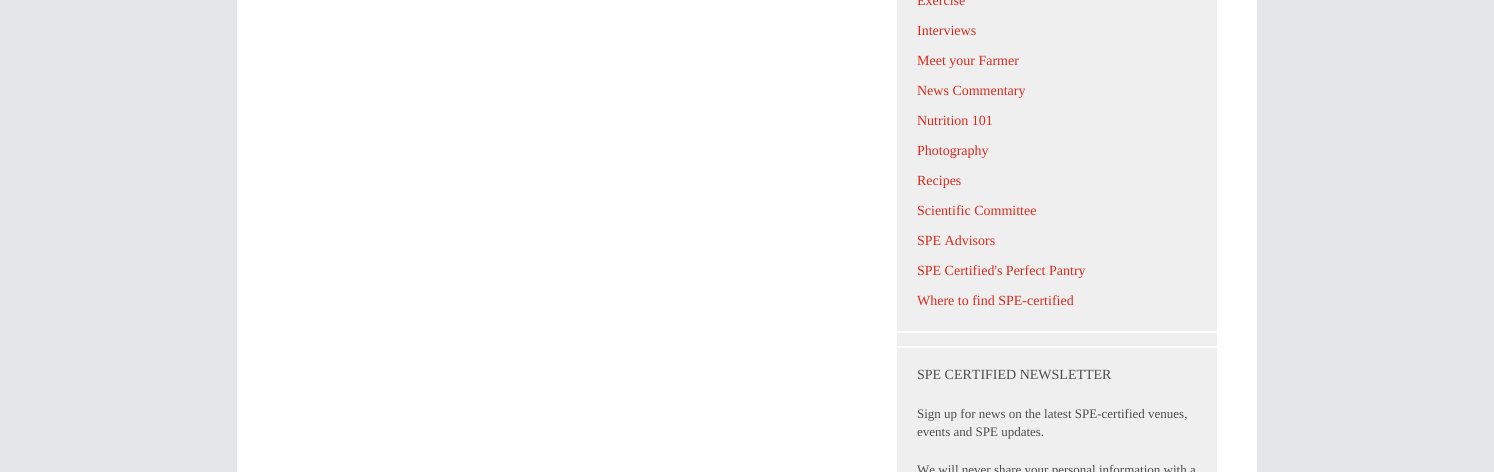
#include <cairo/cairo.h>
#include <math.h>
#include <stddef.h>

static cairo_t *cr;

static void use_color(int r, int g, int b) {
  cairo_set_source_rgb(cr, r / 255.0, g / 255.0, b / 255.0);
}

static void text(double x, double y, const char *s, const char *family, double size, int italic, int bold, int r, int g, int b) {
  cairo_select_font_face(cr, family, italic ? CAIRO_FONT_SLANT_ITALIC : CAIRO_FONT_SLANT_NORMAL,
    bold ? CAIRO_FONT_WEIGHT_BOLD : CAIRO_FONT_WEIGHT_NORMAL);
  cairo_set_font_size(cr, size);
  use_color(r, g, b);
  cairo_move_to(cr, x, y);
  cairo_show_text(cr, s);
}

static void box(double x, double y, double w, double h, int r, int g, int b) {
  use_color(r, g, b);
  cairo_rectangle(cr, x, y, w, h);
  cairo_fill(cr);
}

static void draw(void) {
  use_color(229, 230, 231);
  cairo_paint(cr);
  box(237, 0, 1020, 472, 255, 255, 255);
  box(897, 0, 320, 472, 239, 239, 239);
  box(897, 331, 320, 2, 255, 255, 255);
  box(897, 346, 320, 2, 255, 255, 255);
  text(917, 5, "Exercise", "Liberation Serif", 14, 0, 0, 218, 41, 28);
  text(917, 35, "Interviews", "Liberation Serif", 14, 0, 0, 218, 41, 28);
  text(917, 65, "Meet your Farmer", "Liberation Serif", 14, 0, 0, 218, 41, 28);
  text(917, 95, "News Commentary", "Liberation Serif", 14, 0, 0, 218, 41, 28);
  text(917, 125, "Nutrition 101", "Liberation Serif", 14, 0, 0, 218, 41, 28);
  text(917, 155, "Photography", "Liberation Serif", 14, 0, 0, 218, 41, 28);
  text(917, 185, "Recipes", "Liberation Serif", 14, 0, 0, 218, 41, 28);
  text(917, 215, "Scientific Committee", "Liberation Serif", 14, 0, 0, 218, 41, 28);
  text(917, 245, "SPE Advisors", "Liberation Serif", 14, 0, 0, 218, 41, 28);
  text(917, 275, "SPE Certified's Perfect Pantry", "Liberation Serif", 14, 0, 0, 218, 41, 28);
  text(917, 305, "Where to find SPE-certified", "Liberation Serif", 14, 0, 0, 218, 41, 28);
  text(917, 379, "SPE CERTIFIED NEWSLETTER", "Liberation Serif", 14, 0, 0, 77, 77, 77);
  text(917, 418, "Sign up for news on the latest SPE-certified venues,", "Liberation Serif", 13, 0, 0, 77, 77, 77);
  text(917, 436, "events and SPE updates.", "Liberation Serif", 13, 0, 0, 77, 77, 77);
  text(917, 474, "We will never share your personal information with a", "Liberation Serif", 13, 0, 0, 77, 77, 77);
}

int main(void) {
  cairo_surface_t *surface = cairo_image_surface_create(CAIRO_FORMAT_RGB24, 1494, 472);
  cr = cairo_create(surface);
  cairo_font_options_t *options = cairo_font_options_create();
  cairo_font_options_set_hint_metrics(options, CAIRO_HINT_METRICS_OFF);
  cairo_font_options_set_hint_style(options, CAIRO_HINT_STYLE_NONE);
  cairo_set_font_options(cr, options);
  cairo_set_miter_limit(cr, 4);
  draw();
  cairo_surface_write_to_png(surface, "out.png");
  cairo_font_options_destroy(options);
  cairo_destroy(cr);
  cairo_surface_destroy(surface);
  return 0;
}
